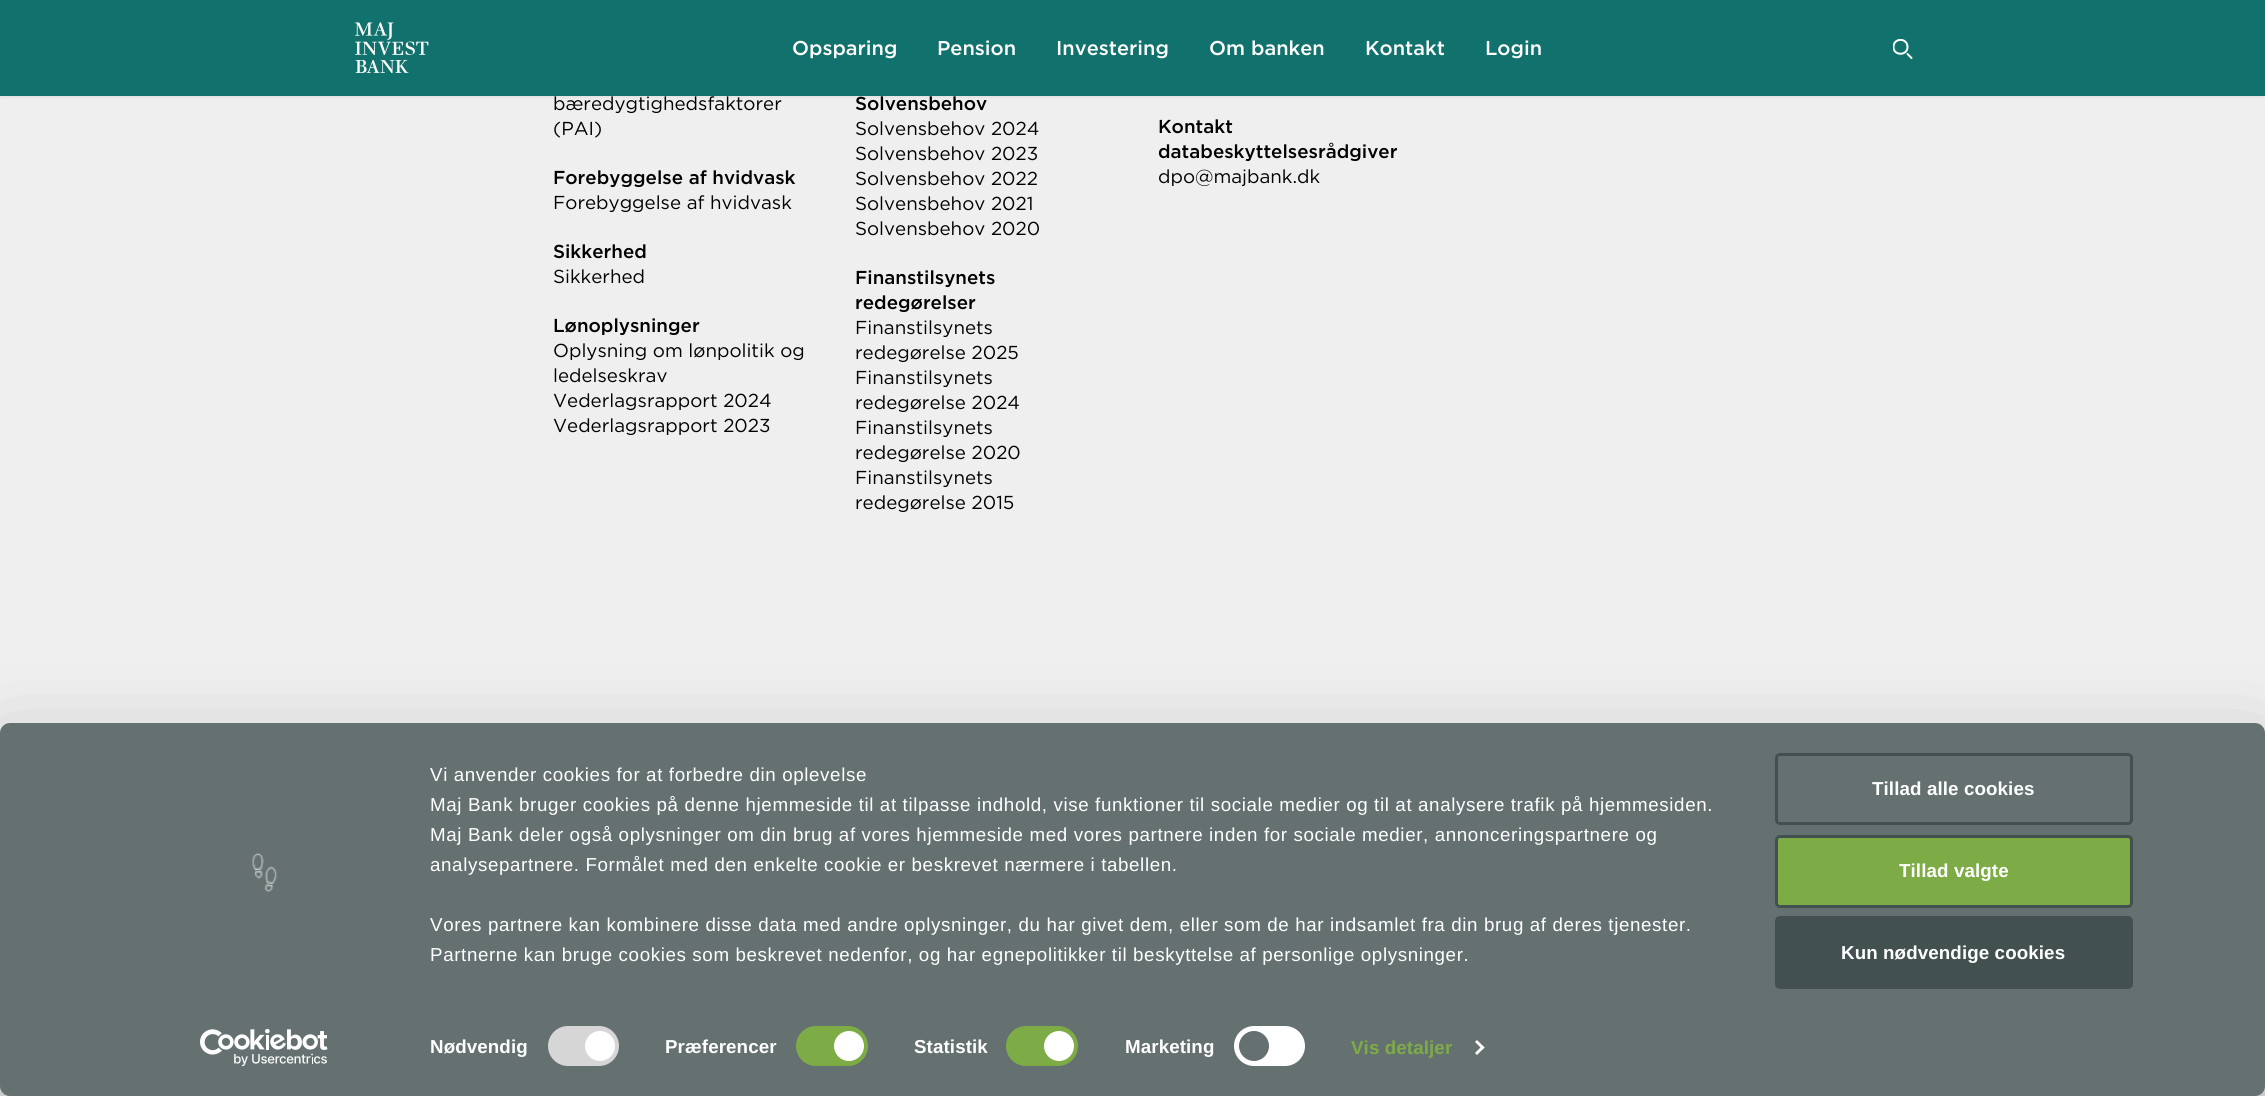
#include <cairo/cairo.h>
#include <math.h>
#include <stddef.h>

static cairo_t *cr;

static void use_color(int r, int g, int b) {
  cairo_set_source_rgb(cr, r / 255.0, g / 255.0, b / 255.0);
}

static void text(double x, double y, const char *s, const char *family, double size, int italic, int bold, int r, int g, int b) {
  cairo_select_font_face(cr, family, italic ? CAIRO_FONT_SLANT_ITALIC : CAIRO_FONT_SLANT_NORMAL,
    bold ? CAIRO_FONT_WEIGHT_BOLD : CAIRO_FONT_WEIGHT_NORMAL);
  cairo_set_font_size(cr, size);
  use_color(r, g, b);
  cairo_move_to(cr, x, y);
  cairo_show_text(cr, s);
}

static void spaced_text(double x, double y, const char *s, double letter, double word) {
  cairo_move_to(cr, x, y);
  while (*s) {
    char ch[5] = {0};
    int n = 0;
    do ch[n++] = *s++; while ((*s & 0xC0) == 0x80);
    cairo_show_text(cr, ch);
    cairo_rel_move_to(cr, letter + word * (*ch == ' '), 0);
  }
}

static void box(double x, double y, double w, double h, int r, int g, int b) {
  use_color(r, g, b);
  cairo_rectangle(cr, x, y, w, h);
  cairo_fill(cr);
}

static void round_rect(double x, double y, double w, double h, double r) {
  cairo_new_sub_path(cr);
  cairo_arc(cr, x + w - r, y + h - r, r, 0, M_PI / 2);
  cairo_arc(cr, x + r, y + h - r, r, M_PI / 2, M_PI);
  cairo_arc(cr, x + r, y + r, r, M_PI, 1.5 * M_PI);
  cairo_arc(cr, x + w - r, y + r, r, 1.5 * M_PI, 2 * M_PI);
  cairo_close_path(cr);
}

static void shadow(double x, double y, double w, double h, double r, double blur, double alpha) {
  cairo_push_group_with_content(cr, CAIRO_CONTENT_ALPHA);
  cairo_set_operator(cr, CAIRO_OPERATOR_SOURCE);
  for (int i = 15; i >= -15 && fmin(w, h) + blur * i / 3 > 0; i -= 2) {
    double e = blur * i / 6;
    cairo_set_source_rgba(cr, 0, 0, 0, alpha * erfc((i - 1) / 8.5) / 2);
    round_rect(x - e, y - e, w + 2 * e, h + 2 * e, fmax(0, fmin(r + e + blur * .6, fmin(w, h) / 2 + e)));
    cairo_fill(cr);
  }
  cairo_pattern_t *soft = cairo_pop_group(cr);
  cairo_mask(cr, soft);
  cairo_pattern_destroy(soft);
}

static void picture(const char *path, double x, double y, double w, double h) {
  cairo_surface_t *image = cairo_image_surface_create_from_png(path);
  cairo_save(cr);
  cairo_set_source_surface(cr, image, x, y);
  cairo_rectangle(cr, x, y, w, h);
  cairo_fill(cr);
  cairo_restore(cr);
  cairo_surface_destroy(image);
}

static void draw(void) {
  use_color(238, 239, 238);
  cairo_paint(cr);
  use_color(0, 0, 0);
  shadow(0, 1, 2265, 97, 0, 1, 0.05);
  box(0, 0, 2265, 96, 17, 113, 108);
  picture("img_01.png", 355, 22, 74, 51);
  cairo_save(cr);
  cairo_rectangle(cr, 1893, 39, 20, 20);
  cairo_clip(cr);
  cairo_new_path(cr);
  cairo_move_to(cr, 1911.5, 58);
  cairo_line_to(cr, 1907.5, 54);
  cairo_move_to(cr, 1907.5, 47);
  cairo_curve_to(cr, 1907.5, 56, 1893.5, 56, 1893.5, 47);
  cairo_curve_to(cr, 1893.5, 37.5, 1907.5, 37.5, 1907.5, 47);
  cairo_close_path(cr);
  use_color(255, 255, 255);
  cairo_set_line_cap(cr, CAIRO_LINE_CAP_ROUND);
  cairo_set_line_join(cr, CAIRO_LINE_JOIN_ROUND);
  cairo_stroke(cr);
  cairo_restore(cr);
  use_color(0, 0, 0);
  shadow(0, 760, 2265, 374, 10, 44, 0.3);
  use_color(101, 113, 112);
  round_rect(0, 723, 2265, 373, 10);
  cairo_fill(cr);
  picture("img_02.png", 252, 853, 25, 39);
  picture("img_03.png", 200, 1029, 128, 37);
  use_color(214, 214, 214);
  round_rect(548, 1026, 71, 40, 20);
  cairo_fill(cr);
  use_color(255, 255, 255);
  cairo_arc(cr, 600, 1046, 15, 0, 2 * M_PI);
  cairo_fill(cr);
  use_color(125, 172, 71);
  round_rect(796, 1026, 72, 40, 20);
  cairo_fill(cr);
  use_color(255, 255, 255);
  cairo_arc(cr, 849, 1046, 15, 0, 2 * M_PI);
  cairo_fill(cr);
  use_color(125, 172, 71);
  round_rect(1006, 1026, 72, 40, 20);
  cairo_fill(cr);
  use_color(255, 255, 255);
  cairo_arc(cr, 1059, 1046, 15, 0, 2 * M_PI);
  cairo_fill(cr);
  round_rect(1234, 1026, 71, 40, 20);
  cairo_fill(cr);
  use_color(101, 113, 112);
  cairo_arc(cr, 1254, 1046, 15, 0, 2 * M_PI);
  cairo_fill(cr);
  use_color(255, 255, 255);
  cairo_new_path(cr);
  cairo_move_to(cr, 1477, 1040);
  cairo_line_to(cr, 1484.5, 1047.5);
  cairo_line_to(cr, 1482.5, 1049.5);
  cairo_line_to(cr, 1475, 1042);
  cairo_close_path(cr);
  cairo_fill(cr);
  cairo_new_path(cr);
  cairo_move_to(cr, 1482.5, 1045.5);
  cairo_line_to(cr, 1484.5, 1047.5);
  cairo_line_to(cr, 1477, 1055);
  cairo_line_to(cr, 1475, 1053);
  cairo_close_path(cr);
  cairo_fill(cr);
  round_rect(1776.5, 754.5, 355, 69, 3.5);
  use_color(67, 80, 80);
  cairo_set_line_width(cr, 3);
  cairo_stroke(cr);
  use_color(125, 172, 71);
  round_rect(1776.5, 836.5, 355, 70, 3.5);
  cairo_fill_preserve(cr);
  use_color(67, 80, 80);
  cairo_stroke(cr);
  round_rect(1776.5, 917.5, 355, 70, 3.5);
  cairo_fill_preserve(cr);
  cairo_stroke(cr);
  text(792, 55, "Opsparing", "Gotham Medium", 20, 0, 0, 255, 255, 255);
  text(937, 55, "Pension", "Gotham Medium", 20, 0, 0, 255, 255, 255);
  text(1056, 55, "Investering", "Gotham Medium", 20, 0, 0, 255, 255, 255);
  text(1209, 55, "Om banken", "Gotham Medium", 20, 0, 0, 255, 255, 255);
  text(1365, 55, "Kontakt", "Gotham Medium", 20, 0, 0, 255, 255, 255);
  text(1485, 55, "Login", "Gotham Medium", 20, 0, 0, 255, 255, 255);
  text(553, 110, "bæredygtighedsfaktorer", "Gotham", 18.75, 0, 0, 0, 0, 0);
  text(553, 135, "(PAI)", "Gotham", 18.75, 0, 0, 0, 0, 0);
  text(553, 184, "Forebyggelse af hvidvask", "Gotham Medium", 18.75, 0, 0, 0, 0, 0);
  text(553, 209, "Forebyggelse af hvidvask", "Gotham", 18.75, 0, 0, 0, 0, 0);
  text(553, 258, "Sikkerhed", "Gotham Medium", 18.75, 0, 0, 0, 0, 0);
  text(553, 283, "Sikkerhed", "Gotham", 18.75, 0, 0, 0, 0, 0);
  text(553, 332, "Lønoplysninger", "Gotham Medium", 18.75, 0, 0, 0, 0, 0);
  text(553, 357, "Oplysning om lønpolitik og", "Gotham", 18.75, 0, 0, 0, 0, 0);
  text(553, 382, "ledelseskrav", "Gotham", 18.75, 0, 0, 0, 0, 0);
  text(553, 407, "Vederlagsrapport 2024", "Gotham", 18.75, 0, 0, 0, 0, 0);
  text(553, 432, "Vederlagsrapport 2023", "Gotham", 18.75, 0, 0, 0, 0, 0);
  text(855, 110, "Solvensbehov", "Gotham Medium", 18.75, 0, 0, 0, 0, 0);
  text(855, 135, "Solvensbehov 2024", "Gotham", 18.75, 0, 0, 0, 0, 0);
  text(855, 160, "Solvensbehov 2023", "Gotham", 18.75, 0, 0, 0, 0, 0);
  text(855, 185, "Solvensbehov 2022", "Gotham", 18.75, 0, 0, 0, 0, 0);
  text(855, 210, "Solvensbehov 2021", "Gotham", 18.75, 0, 0, 0, 0, 0);
  text(855, 235, "Solvensbehov 2020", "Gotham", 18.75, 0, 0, 0, 0, 0);
  text(855, 284, "Finanstilsynets", "Gotham Medium", 18.75, 0, 0, 0, 0, 0);
  text(855, 309, "redegørelser", "Gotham Medium", 18.75, 0, 0, 0, 0, 0);
  text(855, 334, "Finanstilsynets", "Gotham", 18.75, 0, 0, 0, 0, 0);
  text(855, 359, "redegørelse 2025", "Gotham", 18.75, 0, 0, 0, 0, 0);
  text(855, 384, "Finanstilsynets", "Gotham", 18.75, 0, 0, 0, 0, 0);
  text(855, 409, "redegørelse 2024", "Gotham", 18.75, 0, 0, 0, 0, 0);
  text(855, 434, "Finanstilsynets", "Gotham", 18.75, 0, 0, 0, 0, 0);
  text(855, 459, "redegørelse 2020", "Gotham", 18.75, 0, 0, 0, 0, 0);
  text(855, 484, "Finanstilsynets", "Gotham", 18.75, 0, 0, 0, 0, 0);
  text(855, 509, "redegørelse 2015", "Gotham", 18.75, 0, 0, 0, 0, 0);
  text(1158, 133, "Kontakt", "Gotham Medium", 18.75, 0, 0, 0, 0, 0);
  text(1158, 158, "databeskyttelsesrådgiver", "Gotham Medium", 18.75, 0, 0, 0, 0, 0);
  text(1158, 183, "dpo@majbank.dk", "Gotham", 18.75, 0, 0, 0, 0, 0);
  cairo_select_font_face(cr, "Liberation Sans", CAIRO_FONT_SLANT_NORMAL, CAIRO_FONT_WEIGHT_NORMAL);
  use_color(255, 255, 255);
  spaced_text(430, 781, "Vi anvender cookies for at forbedre din oplevelse", 0.62, 0);
  spaced_text(430, 811, "Maj Bank bruger cookies på denne hjemmeside til at tilpasse indhold, vise funktioner til sociale medier og til at analysere trafik på hjemmesiden.", 0.62, 0);
  spaced_text(430, 841, "Maj Bank deler også oplysninger om din brug af vores hjemmeside med vores partnere inden for sociale medier, annonceringspartnere og", 0.62, 0);
  spaced_text(430, 871, "analysepartnere. Formålet med den enkelte cookie er beskrevet nærmere i tabellen.", 0.62, 0);
  spaced_text(430, 931, "Vores partnere kan kombinere disse data med andre oplysninger, du har givet dem, eller som de har indsamlet fra din brug af deres tjenester.", 0.62, 0);
  spaced_text(430, 961, "Partnerne kan bruge cookies som beskrevet nedenfor, og har egnepolitikker til beskyttelse af personlige oplysninger.", 0.62, 0);
  cairo_select_font_face(cr, "Liberation Sans", CAIRO_FONT_SLANT_NORMAL, CAIRO_FONT_WEIGHT_BOLD);
  spaced_text(430, 1053, "Nødvendig", 0.1, 0);
  spaced_text(665, 1053, "Præferencer", 0.1, 0);
  spaced_text(914, 1053, "Statistik", 0.1, 0);
  spaced_text(1125, 1053, "Marketing", 0.1, 0);
  use_color(125, 172, 71);
  spaced_text(1351, 1054, "Vis detaljer", 0.1, 0);
  use_color(255, 255, 255);
  spaced_text(1872, 795, "Tillad alle cookies", 0.1, 0);
  spaced_text(1899, 877, "Tillad valgte", 0.1, 0);
  spaced_text(1841, 959, "Kun nødvendige cookies", 0.1, 0);
}

int main(void) {
  cairo_surface_t *surface = cairo_image_surface_create(CAIRO_FORMAT_RGB24, 2265, 1096);
  cr = cairo_create(surface);
  cairo_font_options_t *options = cairo_font_options_create();
  cairo_font_options_set_hint_metrics(options, CAIRO_HINT_METRICS_OFF);
  cairo_font_options_set_hint_style(options, CAIRO_HINT_STYLE_NONE);
  cairo_set_font_options(cr, options);
  cairo_set_miter_limit(cr, 4);
  draw();
  cairo_surface_write_to_png(surface, "out.png");
  cairo_font_options_destroy(options);
  cairo_destroy(cr);
  cairo_surface_destroy(surface);
  return 0;
}
